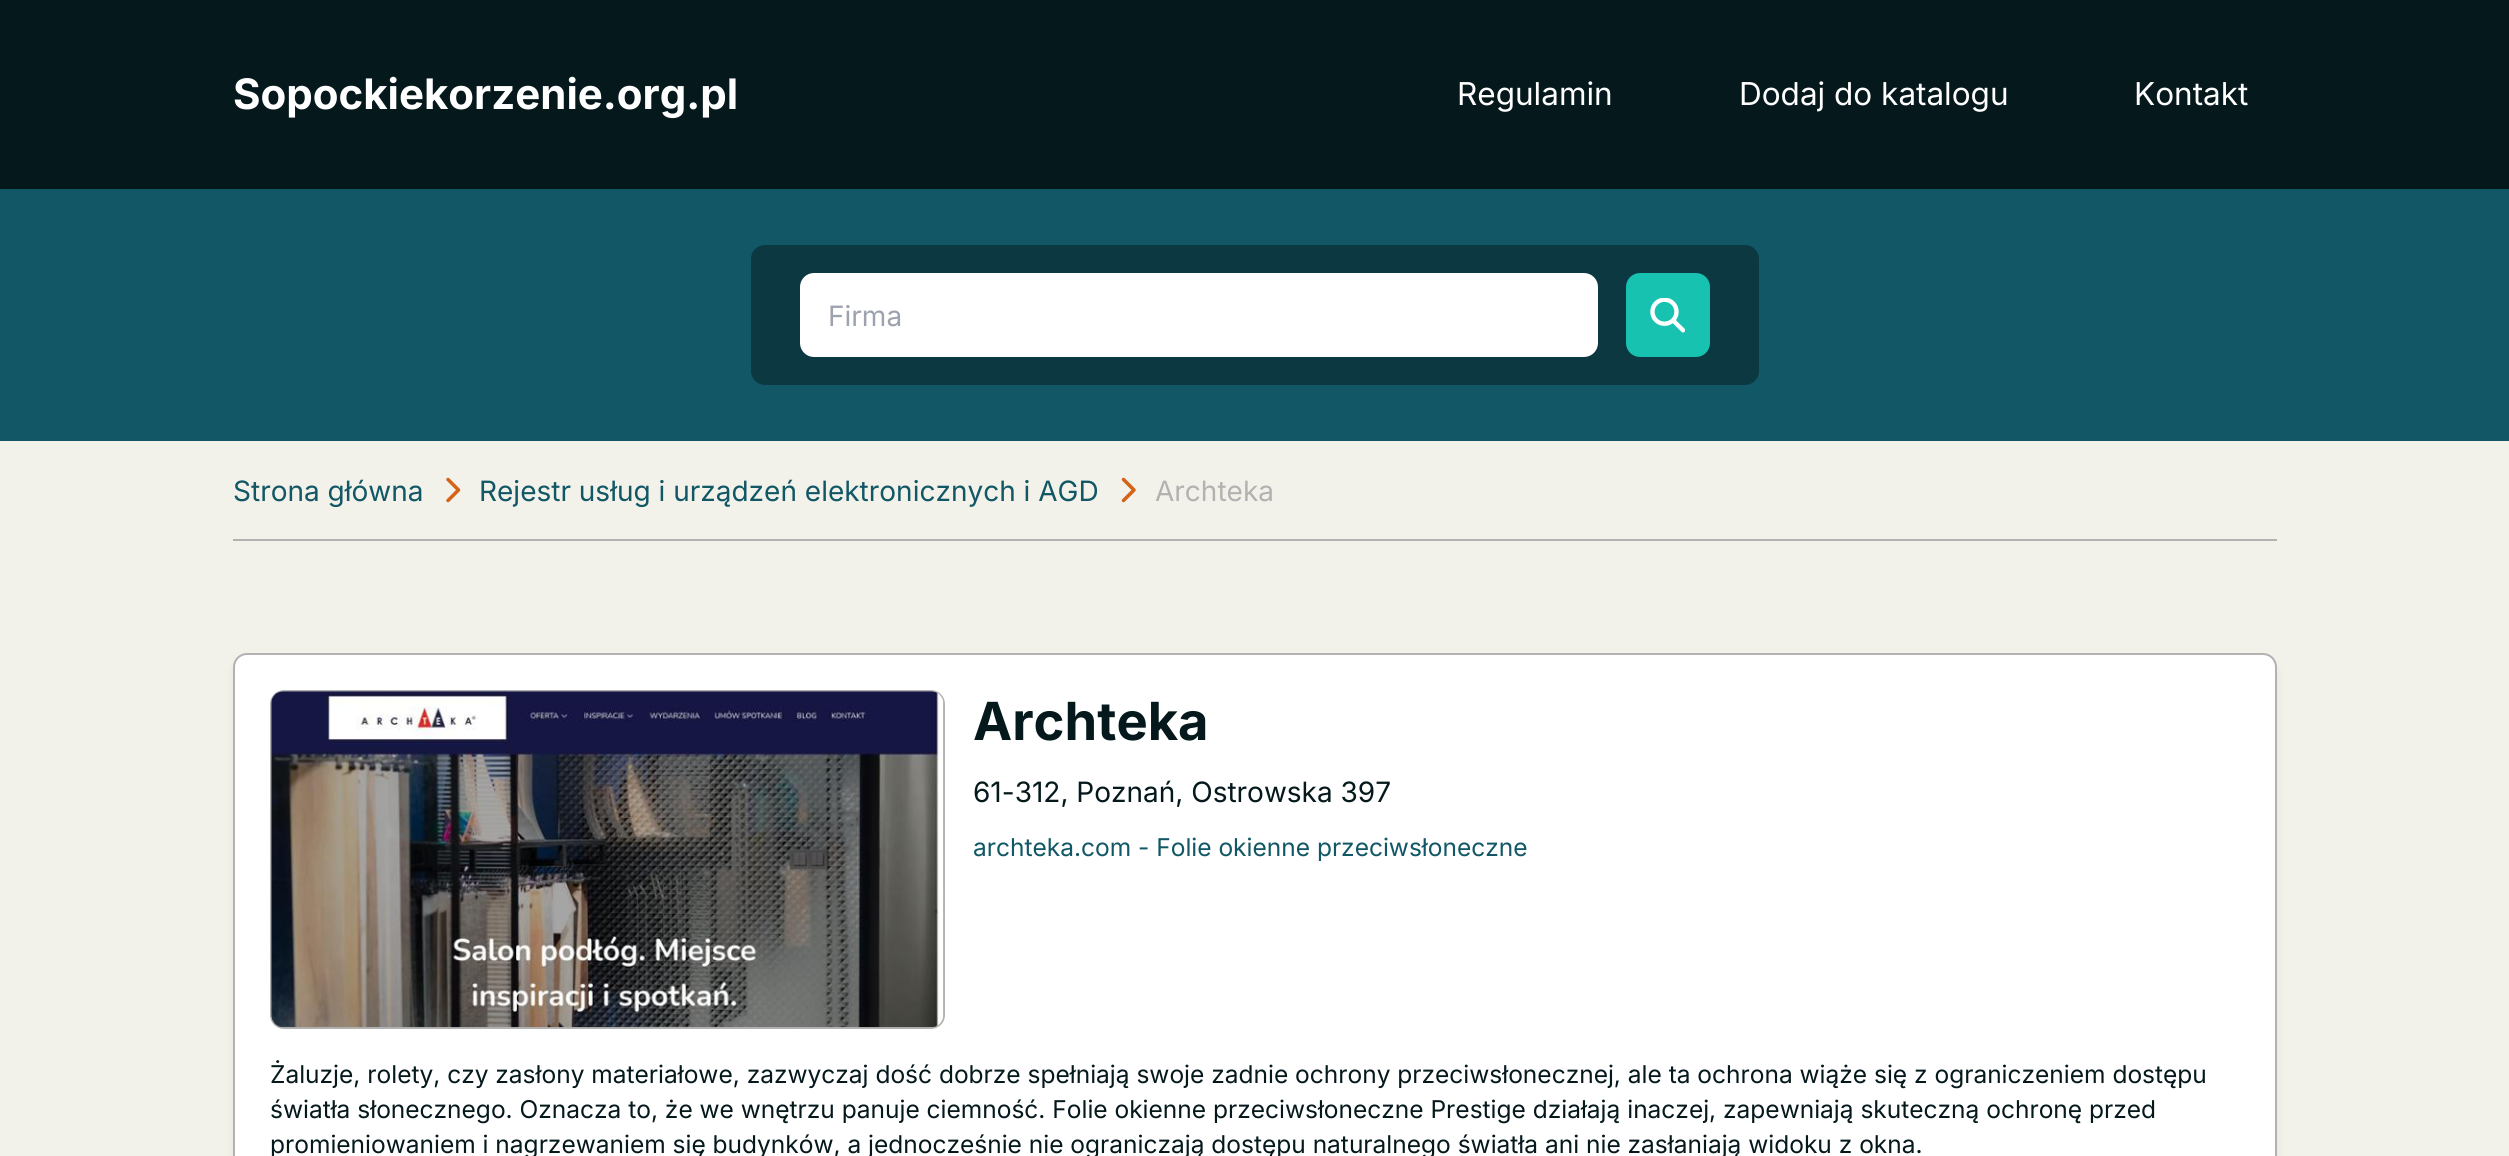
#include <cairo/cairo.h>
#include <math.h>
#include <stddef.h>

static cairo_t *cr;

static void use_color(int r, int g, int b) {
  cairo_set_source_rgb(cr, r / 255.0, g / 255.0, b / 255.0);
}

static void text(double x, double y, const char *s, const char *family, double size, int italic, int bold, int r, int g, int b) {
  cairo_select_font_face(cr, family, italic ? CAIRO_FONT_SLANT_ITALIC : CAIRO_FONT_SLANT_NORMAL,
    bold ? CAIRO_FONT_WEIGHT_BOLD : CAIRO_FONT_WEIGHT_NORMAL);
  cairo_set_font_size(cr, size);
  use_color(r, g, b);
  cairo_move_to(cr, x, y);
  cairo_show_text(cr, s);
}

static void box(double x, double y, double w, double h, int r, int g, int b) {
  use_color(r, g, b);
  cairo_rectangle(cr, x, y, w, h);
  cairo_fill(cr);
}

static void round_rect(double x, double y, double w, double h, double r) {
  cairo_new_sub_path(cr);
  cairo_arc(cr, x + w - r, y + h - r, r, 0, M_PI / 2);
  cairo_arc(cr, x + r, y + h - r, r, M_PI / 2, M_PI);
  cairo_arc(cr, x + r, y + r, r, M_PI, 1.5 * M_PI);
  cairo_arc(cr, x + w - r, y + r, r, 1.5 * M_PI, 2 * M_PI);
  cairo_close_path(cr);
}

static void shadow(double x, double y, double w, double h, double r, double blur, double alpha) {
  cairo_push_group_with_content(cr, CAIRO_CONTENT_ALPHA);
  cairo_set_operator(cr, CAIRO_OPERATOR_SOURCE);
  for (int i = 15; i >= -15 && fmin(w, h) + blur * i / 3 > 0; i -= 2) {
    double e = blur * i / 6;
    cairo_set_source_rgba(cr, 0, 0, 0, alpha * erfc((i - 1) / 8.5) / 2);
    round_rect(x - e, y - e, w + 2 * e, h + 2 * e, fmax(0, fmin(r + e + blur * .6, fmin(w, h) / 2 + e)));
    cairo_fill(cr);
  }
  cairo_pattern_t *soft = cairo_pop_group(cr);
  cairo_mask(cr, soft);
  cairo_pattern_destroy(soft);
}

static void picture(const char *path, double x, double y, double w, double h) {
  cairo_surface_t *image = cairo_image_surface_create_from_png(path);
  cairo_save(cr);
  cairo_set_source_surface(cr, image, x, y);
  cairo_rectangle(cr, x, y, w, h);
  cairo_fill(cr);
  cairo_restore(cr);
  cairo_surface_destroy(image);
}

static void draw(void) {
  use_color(243, 242, 234);
  cairo_paint(cr);
  box(0, 0, 2509, 189, 5, 25, 29);
  box(0, 189, 2509, 252, 17, 87, 101);
  use_color(11, 56, 65);
  round_rect(751, 245, 1008, 140, 14);
  cairo_fill(cr);
  use_color(255, 255, 255);
  round_rect(800, 273, 798, 84, 14);
  cairo_fill(cr);
  use_color(23, 194, 177);
  round_rect(1626, 273, 84, 84, 14);
  cairo_fill(cr);
  picture("img_01.png", 1650, 298, 35, 35);
  box(233, 539, 2044, 2, 178, 178, 178);
  picture("img_02.png", 446, 477, 15, 26);
  picture("img_03.png", 1121, 477, 15, 26);
  use_color(0, 0, 0);
  shadow(235, 662, 2040, 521, 12, 5, 0.1);
  use_color(255, 255, 255);
  round_rect(234, 654, 2042, 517, 13);
  cairo_fill_preserve(cr);
  use_color(178, 178, 178);
  cairo_stroke(cr);
  round_rect(271, 691, 673, 337, 13);
  cairo_stroke(cr);
  picture("img_04.png", 271, 691, 673, 337);
  text(233, 109, "Sopockiekorzenie.org.pl", "Inter", 42, 0, 1, 255, 255, 255);
  text(1457, 105, "Regulamin", "Inter", 31.5, 0, 0, 255, 255, 255);
  text(1739, 105, "Dodaj do katalogu", "Inter", 31.5, 0, 0, 255, 255, 255);
  text(2134, 105, "Kontakt", "Inter", 31.5, 0, 0, 255, 255, 255);
  text(828, 326, "Firma", "Inter", 28, 0, 0, 156, 163, 175);
  text(233, 501, "Strona główna", "Inter", 28, 0, 0, 17, 87, 101);
  text(479, 501, "Rejestr usług i urządzeń elektronicznych i AGD", "Inter", 28, 0, 0, 17, 87, 101);
  text(1155, 501, "Archteka", "Inter", 28, 0, 0, 178, 178, 178);
  text(973, 740, "Archteka", "Inter", 52.5, 0, 1, 5, 25, 29);
  text(973, 802, "61-312, Poznań, Ostrowska 397", "Inter", 28, 0, 0, 5, 25, 29);
  text(973, 856, "archteka.com - Folie okienne przeciwsłoneczne", "Inter", 24.5, 0, 0, 17, 87, 101);
  text(270, 1083, "Żaluzje, rolety, czy zasłony materiałowe, zazwyczaj dość dobrze spełniają swoje zadnie ochrony przeciwsłonecznej, ale ta ochrona wiąże się z ograniczeniem dostępu", "Inter", 24.5, 0, 0, 5, 25, 29);
  text(270, 1118, "światła słonecznego. Oznacza to, że we wnętrzu panuje ciemność. Folie okienne przeciwsłoneczne Prestige działają inaczej, zapewniają skuteczną ochronę przed", "Inter", 24.5, 0, 0, 5, 25, 29);
  text(270, 1153, "promieniowaniem i nagrzewaniem się budynków, a jednocześnie nie ograniczają dostępu naturalnego światła ani nie zasłaniają widoku z okna.", "Inter", 24.5, 0, 0, 5, 25, 29);
}

int main(void) {
  cairo_surface_t *surface = cairo_image_surface_create(CAIRO_FORMAT_RGB24, 2509, 1156);
  cr = cairo_create(surface);
  cairo_font_options_t *options = cairo_font_options_create();
  cairo_font_options_set_hint_metrics(options, CAIRO_HINT_METRICS_OFF);
  cairo_font_options_set_hint_style(options, CAIRO_HINT_STYLE_NONE);
  cairo_set_font_options(cr, options);
  cairo_set_miter_limit(cr, 4);
  draw();
  cairo_surface_write_to_png(surface, "out.png");
  cairo_font_options_destroy(options);
  cairo_destroy(cr);
  cairo_surface_destroy(surface);
  return 0;
}
